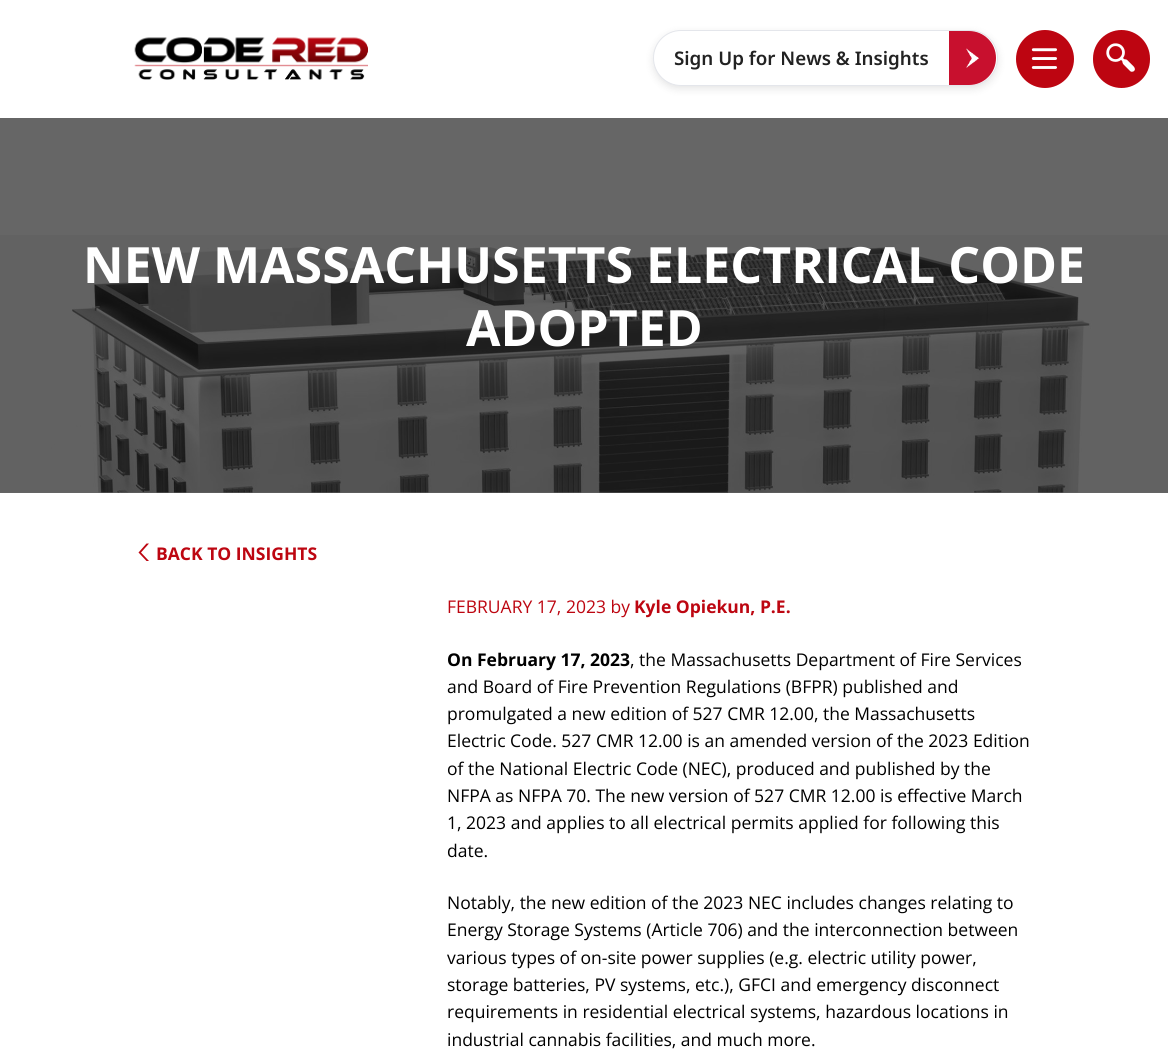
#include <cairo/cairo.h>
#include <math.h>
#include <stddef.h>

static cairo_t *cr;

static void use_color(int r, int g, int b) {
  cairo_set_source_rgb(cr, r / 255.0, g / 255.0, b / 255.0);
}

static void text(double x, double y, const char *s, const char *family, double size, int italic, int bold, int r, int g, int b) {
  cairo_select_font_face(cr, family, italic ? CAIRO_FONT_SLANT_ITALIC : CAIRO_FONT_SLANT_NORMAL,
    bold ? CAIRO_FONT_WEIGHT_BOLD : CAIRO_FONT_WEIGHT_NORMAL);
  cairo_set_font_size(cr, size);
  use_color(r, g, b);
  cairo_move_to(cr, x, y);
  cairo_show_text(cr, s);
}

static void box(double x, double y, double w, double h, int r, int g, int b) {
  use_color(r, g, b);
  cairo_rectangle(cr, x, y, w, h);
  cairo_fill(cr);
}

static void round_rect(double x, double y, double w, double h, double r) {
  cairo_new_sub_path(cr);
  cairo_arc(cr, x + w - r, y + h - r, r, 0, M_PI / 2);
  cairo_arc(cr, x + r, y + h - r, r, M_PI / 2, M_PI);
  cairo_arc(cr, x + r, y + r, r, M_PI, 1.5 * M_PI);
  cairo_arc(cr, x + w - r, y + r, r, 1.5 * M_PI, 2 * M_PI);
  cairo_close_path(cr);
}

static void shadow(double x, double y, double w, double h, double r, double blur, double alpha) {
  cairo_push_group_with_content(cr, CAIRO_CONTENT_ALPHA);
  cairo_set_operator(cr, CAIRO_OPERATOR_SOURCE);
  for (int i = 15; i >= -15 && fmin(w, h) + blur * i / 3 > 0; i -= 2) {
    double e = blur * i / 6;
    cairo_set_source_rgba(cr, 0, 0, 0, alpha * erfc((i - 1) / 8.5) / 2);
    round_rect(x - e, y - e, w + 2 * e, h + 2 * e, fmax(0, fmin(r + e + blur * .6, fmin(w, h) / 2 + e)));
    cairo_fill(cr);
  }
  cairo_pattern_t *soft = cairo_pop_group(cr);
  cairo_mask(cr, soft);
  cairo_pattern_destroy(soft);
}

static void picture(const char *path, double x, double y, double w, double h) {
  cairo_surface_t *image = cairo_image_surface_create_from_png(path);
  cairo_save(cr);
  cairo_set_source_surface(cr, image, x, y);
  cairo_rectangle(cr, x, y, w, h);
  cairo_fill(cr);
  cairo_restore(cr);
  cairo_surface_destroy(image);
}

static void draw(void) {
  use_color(255, 255, 255);
  cairo_paint(cr);
  picture("img_01.png", 134, 37, 234, 43);
  use_color(0, 0, 0);
  shadow(653, 33, 345, 56, 28, 4, 0.1);
  use_color(255, 255, 255);
  round_rect(653.5, 30.5, 344, 55, 27.5);
  cairo_fill_preserve(cr);
  use_color(228, 230, 235);
  cairo_set_line_width(cr, 1);
  cairo_stroke(cr);
  use_color(200, 16, 46);
  cairo_new_path(cr);
  cairo_move_to(cr, 949, 31);
  cairo_line_to(cr, 969, 31);
  cairo_curve_to(cr, 984, 31, 996, 43, 996, 58);
  cairo_curve_to(cr, 996, 73, 984, 85, 969, 85);
  cairo_line_to(cr, 949, 85);
  cairo_close_path(cr);
  cairo_fill(cr);
  picture("img_02.png", 966, 48, 13, 20);
  use_color(189, 5, 17);
  cairo_arc(cr, 1045, 59, 27.5, 0, 2 * M_PI);
  cairo_fill_preserve(cr);
  cairo_set_line_width(cr, 3);
  cairo_stroke(cr);
  picture("img_03.png", 1031, 48, 26, 21);
  round_rect(1094.5, 31.5, 54, 55, 27);
  cairo_fill_preserve(cr);
  cairo_stroke(cr);
  picture("img_04.png", 1106, 43, 29, 29);
  box(0, 118, 1168, 375, 102, 102, 102);
  picture("img_05.png", 0, 235, 1168, 258);
  use_color(189, 6, 17);
  cairo_new_path(cr);
  cairo_move_to(cr, 146.5, 543.5);
  cairo_line_to(cr, 138.5, 552.5);
  cairo_line_to(cr, 146.5, 561);
  cairo_line_to(cr, 149, 561);
  cairo_line_to(cr, 141, 552.5);
  cairo_line_to(cr, 149, 543.5);
  cairo_close_path(cr);
  cairo_fill(cr);
  text(674, 65, "Sign Up for News & Insights", "Noto Sans SemiBold", 18.75, 0, 0, 34, 34, 34);
  text(83, 283, "NEW MASSACHUSETTS ELECTRICAL CODE", "Open Sans", 50, 0, 1, 255, 255, 255);
  text(466, 346, "ADOPTED", "Open Sans", 50, 0, 1, 255, 255, 255);
  text(156, 560, "BACK TO INSIGHTS", "Open Sans", 17.5, 0, 1, 189, 6, 17);
  text(447, 613, "FEBRUARY 17, 2023 by", "Open Sans", 17.5, 0, 0, 189, 6, 17);
  text(634, 613, "Kyle Opiekun, P.E.", "Open Sans", 17.5, 0, 1, 189, 6, 17);
  text(447, 666, "On February 17, 2023", "Open Sans", 17.5, 0, 1, 0, 0, 0);
  text(630, 666, ", the Massachusetts Department of Fire Services", "Open Sans", 17.5, 0, 0, 0, 0, 0);
  text(447, 693, "and Board of Fire Prevention Regulations (BFPR) published and", "Open Sans", 17.5, 0, 0, 0, 0, 0);
  text(447, 720, "promulgated a new edition of 527 CMR 12.00, the Massachusetts", "Open Sans", 17.5, 0, 0, 0, 0, 0);
  text(447, 747, "Electric Code. 527 CMR 12.00 is an amended version of the 2023 Edition", "Open Sans", 17.5, 0, 0, 0, 0, 0);
  text(447, 775, "of the National Electric Code (NEC), produced and published by the", "Open Sans", 17.5, 0, 0, 0, 0, 0);
  text(447, 802, "NFPA as NFPA 70. The new version of 527 CMR 12.00 is effective March", "Open Sans", 17.5, 0, 0, 0, 0, 0);
  text(447, 829, "1, 2023 and applies to all electrical permits applied for following this", "Open Sans", 17.5, 0, 0, 0, 0, 0);
  text(447, 857, "date.", "Open Sans", 17.5, 0, 0, 0, 0, 0);
  text(447, 909, "Notably, the new edition of the 2023 NEC includes changes relating to", "Open Sans", 17.5, 0, 0, 0, 0, 0);
  text(447, 936, "Energy Storage Systems (Article 706) and the interconnection between", "Open Sans", 17.5, 0, 0, 0, 0, 0);
  text(447, 964, "various types of on-site power supplies (e.g. electric utility power,", "Open Sans", 17.5, 0, 0, 0, 0, 0);
  text(447, 991, "storage batteries, PV systems, etc.), GFCI and emergency disconnect", "Open Sans", 17.5, 0, 0, 0, 0, 0);
  text(447, 1018, "requirements in residential electrical systems, hazardous locations in", "Open Sans", 17.5, 0, 0, 0, 0, 0);
  text(447, 1046, "industrial cannabis facilities, and much more.", "Open Sans", 17.5, 0, 0, 0, 0, 0);
}

int main(void) {
  cairo_surface_t *surface = cairo_image_surface_create(CAIRO_FORMAT_RGB24, 1168, 1054);
  cr = cairo_create(surface);
  cairo_font_options_t *options = cairo_font_options_create();
  cairo_font_options_set_hint_metrics(options, CAIRO_HINT_METRICS_OFF);
  cairo_font_options_set_hint_style(options, CAIRO_HINT_STYLE_NONE);
  cairo_set_font_options(cr, options);
  cairo_set_miter_limit(cr, 4);
  draw();
  cairo_surface_write_to_png(surface, "out.png");
  cairo_font_options_destroy(options);
  cairo_destroy(cr);
  cairo_surface_destroy(surface);
  return 0;
}
